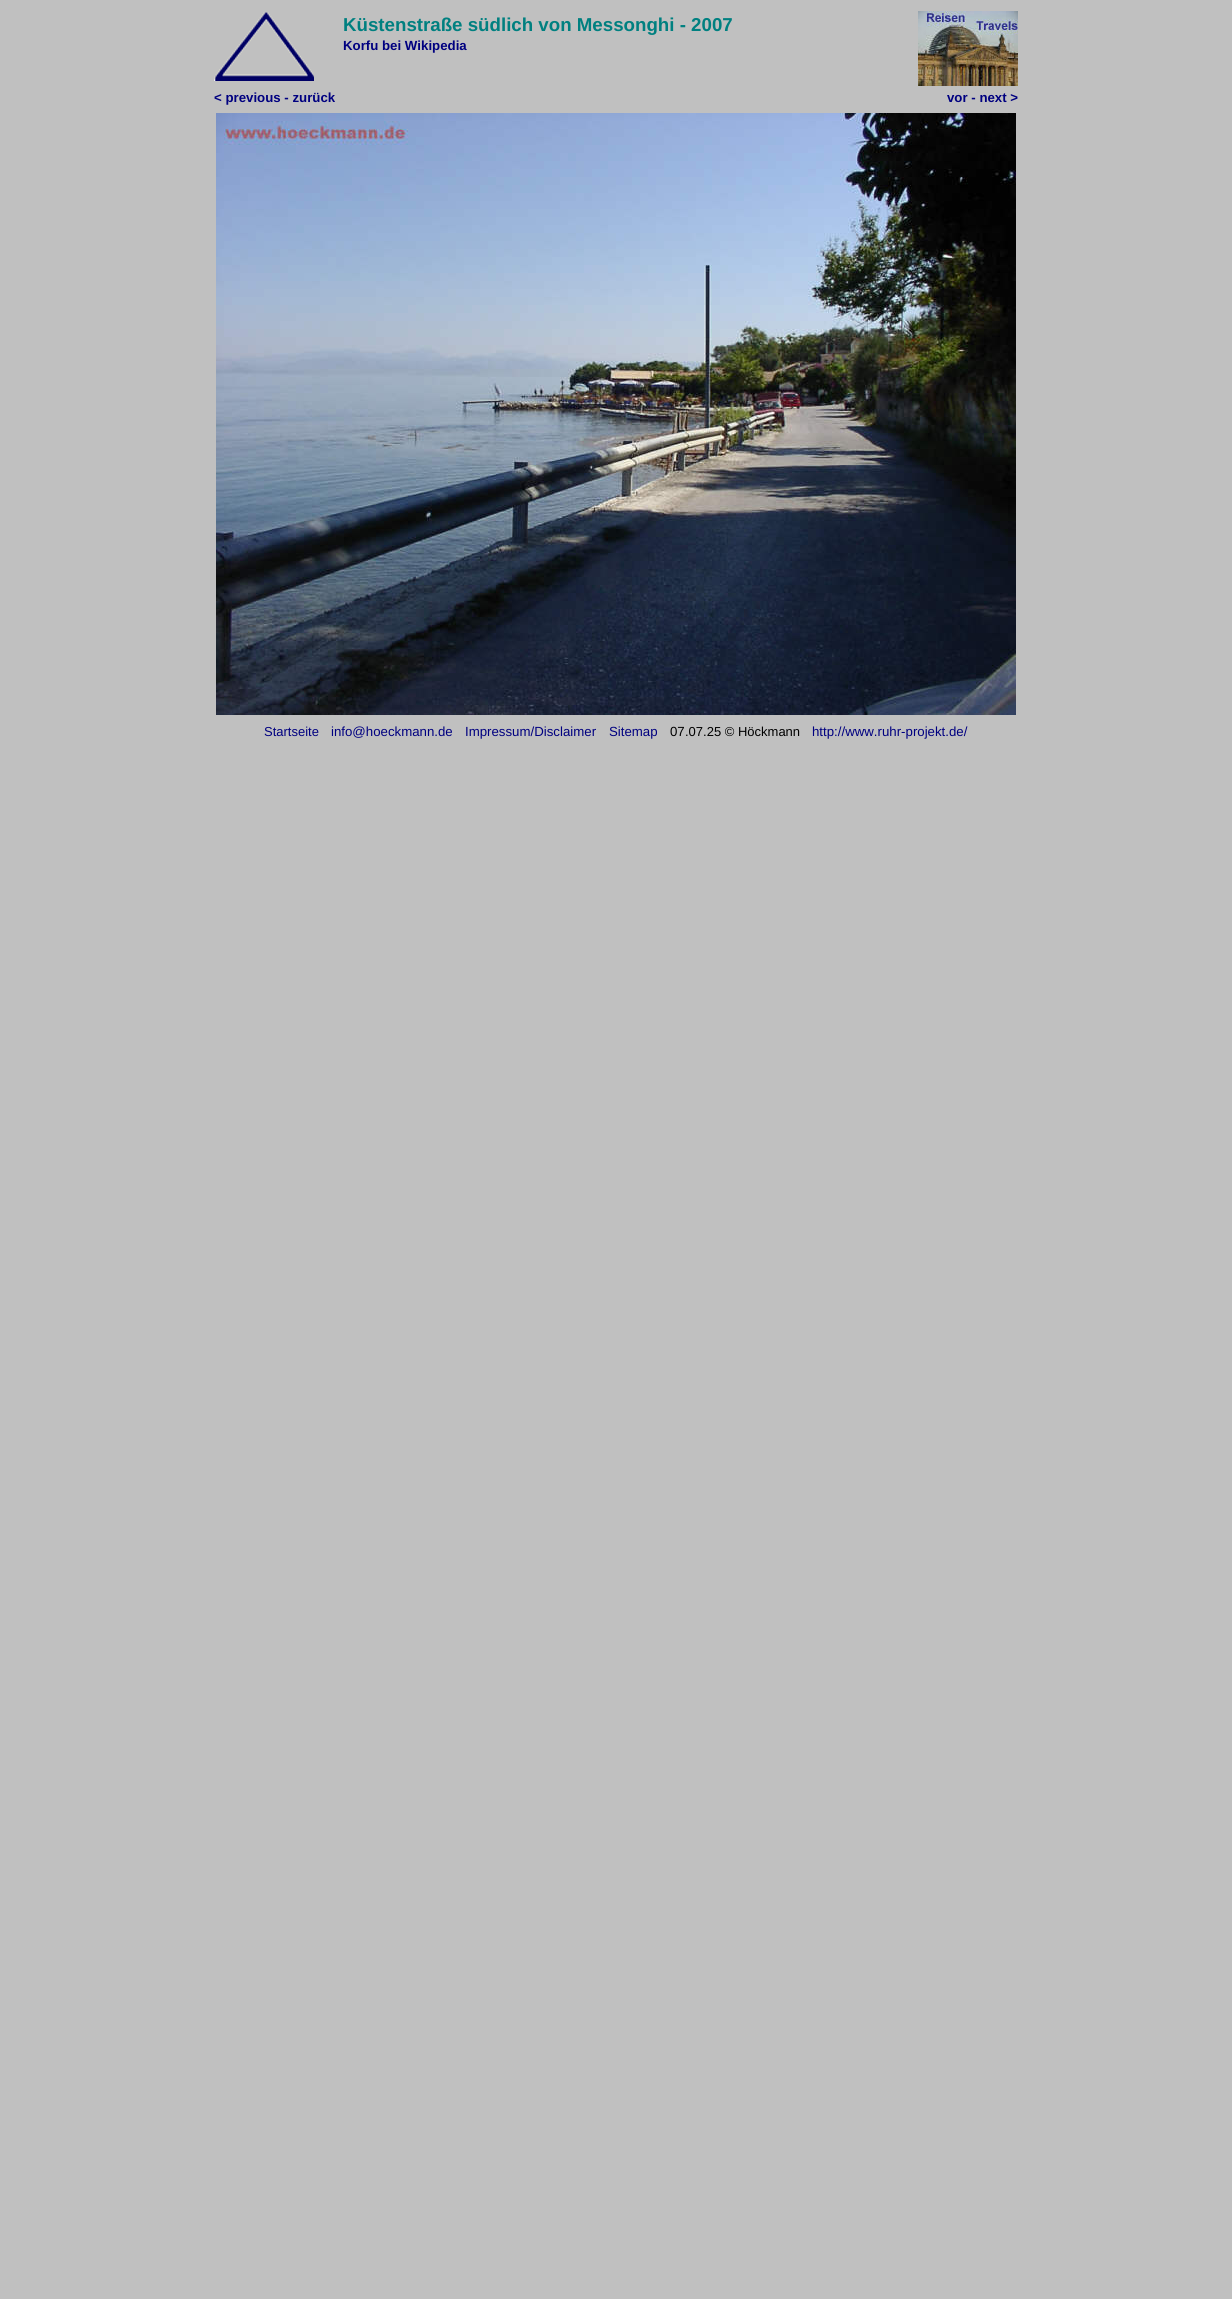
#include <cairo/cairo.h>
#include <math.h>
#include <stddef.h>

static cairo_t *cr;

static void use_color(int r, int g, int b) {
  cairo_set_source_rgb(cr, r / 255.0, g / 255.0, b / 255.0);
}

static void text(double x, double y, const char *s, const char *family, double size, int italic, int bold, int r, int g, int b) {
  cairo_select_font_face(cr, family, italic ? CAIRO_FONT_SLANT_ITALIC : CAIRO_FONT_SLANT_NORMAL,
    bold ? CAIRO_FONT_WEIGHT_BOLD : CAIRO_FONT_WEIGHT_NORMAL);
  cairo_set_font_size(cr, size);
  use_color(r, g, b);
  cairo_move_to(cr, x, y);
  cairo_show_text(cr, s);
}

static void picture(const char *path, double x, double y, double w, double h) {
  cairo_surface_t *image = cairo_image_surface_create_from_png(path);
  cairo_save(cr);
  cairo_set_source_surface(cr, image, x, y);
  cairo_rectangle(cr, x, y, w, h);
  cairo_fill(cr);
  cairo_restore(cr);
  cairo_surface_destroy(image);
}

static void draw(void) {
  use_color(192, 192, 192);
  cairo_paint(cr);
  picture("img_01.png", 214, 12, 100, 69);
  picture("img_02.png", 918, 11, 100, 75);
  picture("img_03.png", 216, 113, 800, 602);
  text(343, 31, "Küstenstraße südlich von Messonghi - 2007", "Liberation Sans", 18.7, 0, 1, 0, 128, 128);
  text(343, 50, "Korfu bei Wikipedia", "Liberation Sans", 13.25, 0, 1, 0, 0, 128);
  text(214, 102, "< previous - zurück", "Liberation Sans", 13.25, 0, 1, 0, 0, 128);
  text(947, 102, "vor - next >", "Liberation Sans", 13.25, 0, 1, 0, 0, 128);
  text(264, 736, "Startseite", "Liberation Sans", 13, 0, 0, 0, 0, 128);
  text(331, 736, "info@hoeckmann.de", "Liberation Sans", 13.25, 0, 0, 0, 0, 128);
  text(465, 736, "Impressum/Disclaimer", "Liberation Sans", 13.25, 0, 0, 0, 0, 128);
  text(609, 736, "Sitemap", "Liberation Sans", 13.25, 0, 0, 0, 0, 128);
  text(670, 736, "07", "Liberation Sans", 13.25, 0, 0, 0, 0, 0);
  text(685, 736, ".07.25 © Höckmann", "Liberation Sans", 13, 0, 0, 0, 0, 0);
  text(812, 736, "http://www.ruhr-projekt.de/", "Liberation Sans", 13.25, 0, 0, 0, 0, 128);
}

int main(void) {
  cairo_surface_t *surface = cairo_image_surface_create(CAIRO_FORMAT_RGB24, 1232, 2299);
  cr = cairo_create(surface);
  cairo_font_options_t *options = cairo_font_options_create();
  cairo_font_options_set_hint_metrics(options, CAIRO_HINT_METRICS_OFF);
  cairo_font_options_set_hint_style(options, CAIRO_HINT_STYLE_NONE);
  cairo_set_font_options(cr, options);
  cairo_set_miter_limit(cr, 4);
  draw();
  cairo_surface_write_to_png(surface, "out.png");
  cairo_font_options_destroy(options);
  cairo_destroy(cr);
  cairo_surface_destroy(surface);
  return 0;
}
